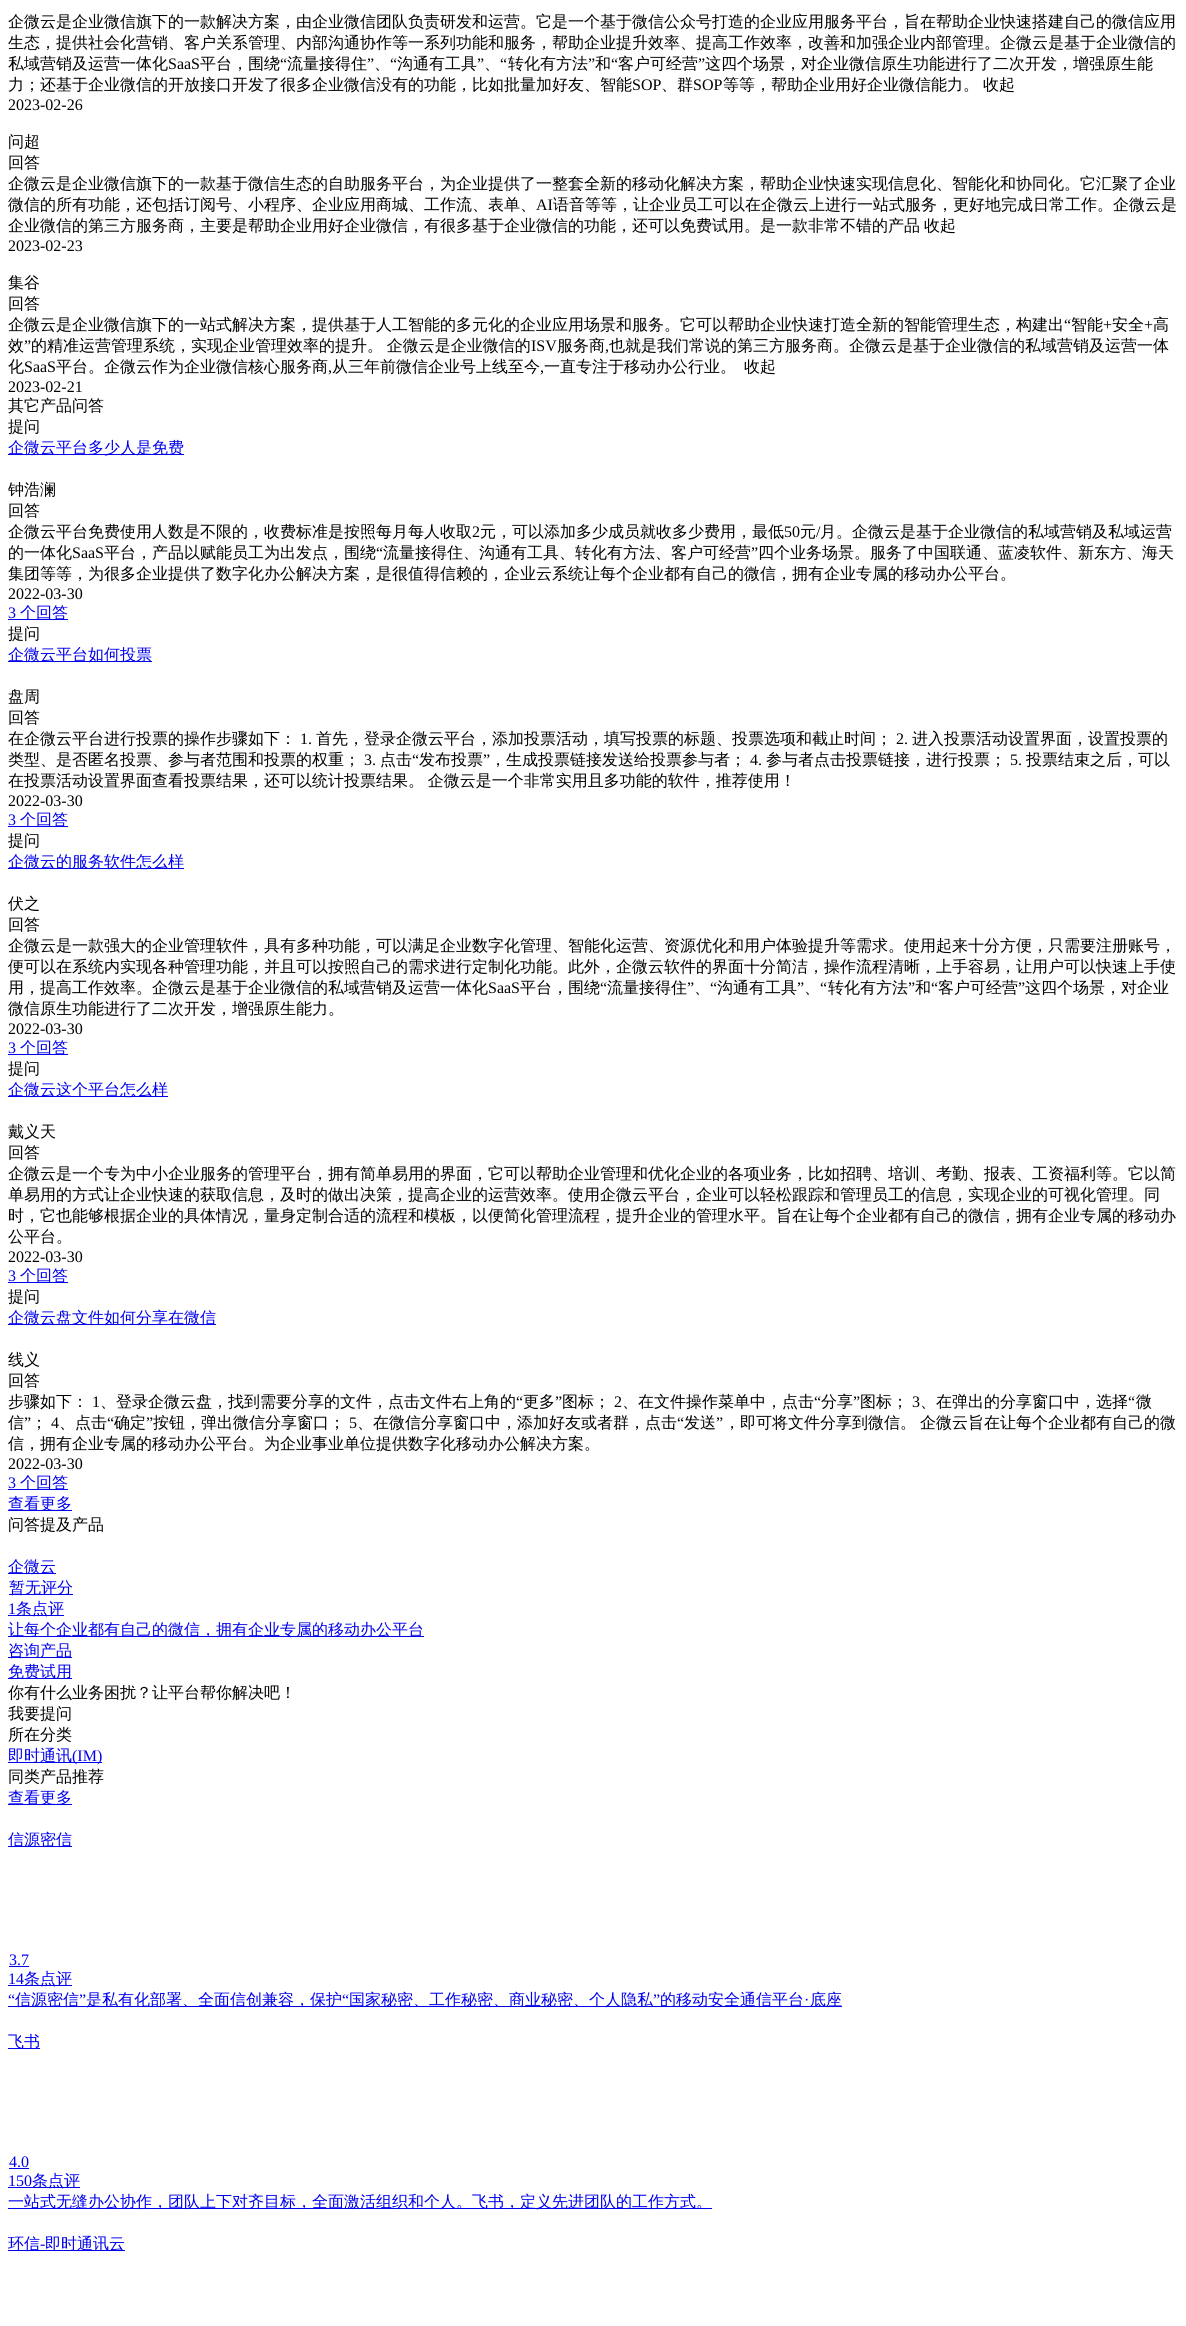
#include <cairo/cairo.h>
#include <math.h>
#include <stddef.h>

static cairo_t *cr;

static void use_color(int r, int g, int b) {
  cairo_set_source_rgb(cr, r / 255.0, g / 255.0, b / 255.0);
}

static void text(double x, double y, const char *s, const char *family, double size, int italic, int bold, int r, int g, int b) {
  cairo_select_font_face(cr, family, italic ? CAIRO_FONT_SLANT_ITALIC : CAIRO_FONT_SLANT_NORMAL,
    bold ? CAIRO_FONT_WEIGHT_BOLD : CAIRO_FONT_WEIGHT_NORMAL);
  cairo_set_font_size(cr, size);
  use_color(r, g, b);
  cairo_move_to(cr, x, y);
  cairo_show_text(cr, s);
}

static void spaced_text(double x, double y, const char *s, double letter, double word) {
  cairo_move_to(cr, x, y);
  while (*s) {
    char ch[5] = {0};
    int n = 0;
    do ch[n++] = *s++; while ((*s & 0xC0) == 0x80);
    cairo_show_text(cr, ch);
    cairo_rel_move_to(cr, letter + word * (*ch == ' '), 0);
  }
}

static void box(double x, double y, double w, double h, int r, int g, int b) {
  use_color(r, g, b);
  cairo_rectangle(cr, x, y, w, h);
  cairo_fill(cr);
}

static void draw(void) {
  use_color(255, 255, 255);
  cairo_paint(cr);
  box(8, 454, 176, 1, 0, 0, 238);
  box(8, 619, 60, 1, 0, 0, 238);
  box(8, 661, 144, 1, 0, 0, 238);
  box(8, 826, 60, 1, 0, 0, 238);
  box(8, 868, 176, 1, 0, 0, 238);
  box(8, 1054, 60, 1, 0, 0, 238);
  box(8, 1096, 160, 1, 0, 0, 238);
  box(8, 1282, 60, 1, 0, 0, 238);
  box(8, 1324, 208, 1, 0, 0, 238);
  box(8, 1489, 60, 1, 0, 0, 238);
  box(8, 1510, 64, 1, 0, 0, 238);
  box(8, 1573, 48, 1, 0, 0, 238);
  box(9, 1594, 64, 1, 0, 0, 238);
  box(8, 1615, 56, 1, 0, 0, 238);
  box(8, 1636, 416, 1, 0, 0, 238);
  box(8, 1657, 64, 1, 0, 0, 238);
  box(8, 1678, 64, 1, 0, 0, 238);
  box(8, 1762, 94, 1, 0, 0, 238);
  box(8, 1804, 64, 1, 0, 0, 238);
  box(8, 1846, 64, 1, 0, 0, 238);
  box(9, 1966, 20, 1, 0, 0, 238);
  box(8, 1985, 64, 1, 0, 0, 238);
  box(8, 2006, 834, 1, 0, 0, 238);
  box(8, 2048, 32, 1, 0, 0, 238);
  box(9, 2168, 20, 1, 0, 0, 238);
  box(8, 2187, 72, 1, 0, 0, 238);
  box(8, 2208, 704, 1, 0, 0, 238);
  box(8, 2250, 117, 1, 0, 0, 238);
  text(8, 27, "企微云是企业微信旗下的一款解决方案，由企业微信团队负责研发和运营。它是一个基于微信公众号打造的企业应用服务平台，旨在帮助企业快速搭建自己的微信应用", "WenQuanYi Zen Hei Medium", 16, 0, 0, 0, 0, 0);
  text(8, 48, "生态，提供社会化营销、客户关系管理、内部沟通协作等一系列功能和服务，帮助企业提升效率、提高工作效率，改善和加强企业内部管理。企微云是基于企业微信的", "WenQuanYi Zen Hei Medium", 16, 0, 0, 0, 0, 0);
  text(8, 69, "私域营销及运营一体化", "WenQuanYi Zen Hei Medium", 16, 0, 0, 0, 0, 0);
  text(168, 69, "SaaS", "Liberation Serif", 16, 0, 0, 0, 0, 0);
  text(200, 69, "平台，围绕", "WenQuanYi Zen Hei Medium", 16, 0, 0, 0, 0, 0);
  text(280, 69, "“", "Liberation Serif", 16, 0, 0, 0, 0, 0);
  text(287, 69, "流量接得住", "WenQuanYi Zen Hei Medium", 16, 0, 0, 0, 0, 0);
  text(367, 69, "”", "Liberation Serif", 16, 0, 0, 0, 0, 0);
  text(390, 69, "“", "Liberation Serif", 16, 0, 0, 0, 0, 0);
  text(397, 69, "沟通有工具", "WenQuanYi Zen Hei Medium", 16, 0, 0, 0, 0, 0);
  text(477, 69, "”", "Liberation Serif", 16, 0, 0, 0, 0, 0);
  text(500, 69, "“", "Liberation Serif", 16, 0, 0, 0, 0, 0);
  text(508, 69, "转化有方法", "WenQuanYi Zen Hei Medium", 16, 0, 0, 0, 0, 0);
  text(588, 69, "”", "Liberation Serif", 16, 0, 0, 0, 0, 0);
  text(595, 69, "和", "WenQuanYi Zen Hei Medium", 16, 0, 0, 0, 0, 0);
  text(611, 69, "“", "Liberation Serif", 16, 0, 0, 0, 0, 0);
  text(618, 69, "客户可经营", "WenQuanYi Zen Hei Medium", 16, 0, 0, 0, 0, 0);
  text(698, 69, "”", "Liberation Serif", 16, 0, 0, 0, 0, 0);
  text(705, 69, "这四个场景，对企业微信原生功能进行了二次开发，增强原生能", "WenQuanYi Zen Hei Medium", 16, 0, 0, 0, 0, 0);
  text(374, 69, "、", "WenQuanYi Zen Hei Medium", 16, 0, 0, 0, 0, 0);
  text(484, 69, "、", "WenQuanYi Zen Hei Medium", 16, 0, 0, 0, 0, 0);
  text(8, 90, "力；还基于企业微信的开放接口开发了很多企业微信没有的功能，比如批量加好友、智能", "WenQuanYi Zen Hei Medium", 16, 0, 0, 0, 0, 0);
  text(632, 90, "SOP", "Liberation Serif", 16, 0, 0, 0, 0, 0);
  text(661, 90, "、群", "WenQuanYi Zen Hei Medium", 16, 0, 0, 0, 0, 0);
  text(693, 90, "SOP", "Liberation Serif", 16, 0, 0, 0, 0, 0);
  text(723, 90, "等等，帮助企业用好企业微信能力。", "WenQuanYi Zen Hei Medium", 16, 0, 0, 0, 0, 0);
  text(983, 90, "收起", "WenQuanYi Zen Hei Medium", 16, 0, 0, 0, 0, 0);
  text(8, 110, "2023-02-26", "Liberation Serif", 16, 0, 0, 0, 0, 0);
  text(8, 147, "问超", "WenQuanYi Zen Hei Medium", 16, 0, 0, 0, 0, 0);
  text(8, 168, "回答", "WenQuanYi Zen Hei Medium", 16, 0, 0, 0, 0, 0);
  text(8, 189, "企微云是企业微信旗下的一款基于微信生态的自助服务平台，为企业提供了一整套全新的移动化解决方案，帮助企业快速实现信息化、智能化和协同化。它汇聚了企业", "WenQuanYi Zen Hei Medium", 16, 0, 0, 0, 0, 0);
  text(8, 210, "微信的所有功能，还包括订阅号、小程序、企业应用商城、工作流、表单、", "WenQuanYi Zen Hei Medium", 16, 0, 0, 0, 0, 0);
  text(536, 210, "AI", "Liberation Serif", 16, 0, 0, 0, 0, 0);
  text(553, 210, "语音等等，让企业员工可以在企微云上进行一站式服务，更好地完成日常工作。企微云是", "WenQuanYi Zen Hei Medium", 16, 0, 0, 0, 0, 0);
  text(8, 231, "企业微信的第三方服务商，主要是帮助企业用好企业微信，有很多基于企业微信的功能，还可以免费试用。是一款非常不错的产品", "WenQuanYi Zen Hei Medium", 16, 0, 0, 0, 0, 0);
  text(924, 231, "收起", "WenQuanYi Zen Hei Medium", 16, 0, 0, 0, 0, 0);
  text(8, 251, "2023-02-23", "Liberation Serif", 16, 0, 0, 0, 0, 0);
  text(8, 288, "集谷", "WenQuanYi Zen Hei Medium", 16, 0, 0, 0, 0, 0);
  text(8, 309, "回答", "WenQuanYi Zen Hei Medium", 16, 0, 0, 0, 0, 0);
  text(8, 330, "企微云是企业微信旗下的一站式解决方案，提供基于人工智能的多元化的企业应用场景和服务。它可以帮助企业快速打造全新的智能管理生态，构建出", "WenQuanYi Zen Hei Medium", 16, 0, 0, 0, 0, 0);
  text(1064, 330, "“", "Liberation Serif", 16, 0, 0, 0, 0, 0);
  text(1071, 330, "智能", "WenQuanYi Zen Hei Medium", 16, 0, 0, 0, 0, 0);
  text(1103, 330, "+", "Liberation Serif", 16, 0, 0, 0, 0, 0);
  text(1112, 330, "安全", "WenQuanYi Zen Hei Medium", 16, 0, 0, 0, 0, 0);
  text(1144, 330, "+", "Liberation Serif", 16, 0, 0, 0, 0, 0);
  text(1153, 330, "高", "WenQuanYi Zen Hei Medium", 16, 0, 0, 0, 0, 0);
  text(8, 351, "效", "WenQuanYi Zen Hei Medium", 16, 0, 0, 0, 0, 0);
  text(24, 351, "”", "Liberation Serif", 16, 0, 0, 0, 0, 0);
  cairo_select_font_face(cr, "WenQuanYi Zen Hei Medium", CAIRO_FONT_SLANT_NORMAL, CAIRO_FONT_WEIGHT_NORMAL);
  spaced_text(31, 351, "的精准运营管理系统，实现企业管理效率的提升。 企微云是企业微信的", 0, -1);
  text(531, 351, "ISV", "Liberation Serif", 16, 0, 0, 0, 0, 0);
  text(557, 351, "服务商", "WenQuanYi Zen Hei Medium", 16, 0, 0, 0, 0, 0);
  text(605, 351, ",", "Liberation Serif", 16, 0, 0, 0, 0, 0);
  text(609, 351, "也就是我们常说的第三方服务商。企微云是基于企业微信的私域营销及运营一体", "WenQuanYi Zen Hei Medium", 16, 0, 0, 0, 0, 0);
  text(8, 372, "化", "WenQuanYi Zen Hei Medium", 16, 0, 0, 0, 0, 0);
  text(24, 372, "SaaS", "Liberation Serif", 16, 0, 0, 0, 0, 0);
  text(56, 372, "平台。企微云作为企业微信核心服务商", "WenQuanYi Zen Hei Medium", 16, 0, 0, 0, 0, 0);
  text(328, 372, ",", "Liberation Serif", 16, 0, 0, 0, 0, 0);
  text(332, 372, "从三年前微信企业号上线至今", "WenQuanYi Zen Hei Medium", 16, 0, 0, 0, 0, 0);
  text(540, 372, ",", "Liberation Serif", 16, 0, 0, 0, 0, 0);
  text(544, 372, "一直专注于移动办公行业。", "WenQuanYi Zen Hei Medium", 16, 0, 0, 0, 0, 0);
  text(744, 372, "收起", "WenQuanYi Zen Hei Medium", 16, 0, 0, 0, 0, 0);
  text(8, 392, "2023-02-21", "Liberation Serif", 16, 0, 0, 0, 0, 0);
  text(8, 411, "其它产品问答", "WenQuanYi Zen Hei Medium", 16, 0, 0, 0, 0, 0);
  text(8, 432, "提问", "WenQuanYi Zen Hei Medium", 16, 0, 0, 0, 0, 0);
  text(8, 453, "企微云平台多少人是免费", "WenQuanYi Zen Hei Medium", 16, 0, 0, 0, 0, 238);
  text(8, 495, "钟浩澜", "WenQuanYi Zen Hei Medium", 16, 0, 0, 0, 0, 0);
  text(8, 516, "回答", "WenQuanYi Zen Hei Medium", 16, 0, 0, 0, 0, 0);
  text(8, 537, "企微云平台免费使用人数是不限的，收费标准是按照每月每人收取", "WenQuanYi Zen Hei Medium", 16, 0, 0, 0, 0, 0);
  text(472, 537, "2", "Liberation Serif", 16, 0, 0, 0, 0, 0);
  text(480, 537, "元，可以添加多少成员就收多少费用，最低", "WenQuanYi Zen Hei Medium", 16, 0, 0, 0, 0, 0);
  text(784, 537, "50", "Liberation Serif", 16, 0, 0, 0, 0, 0);
  text(800, 537, "元", "WenQuanYi Zen Hei Medium", 16, 0, 0, 0, 0, 0);
  text(816, 537, "/", "Liberation Serif", 16, 0, 0, 0, 0, 0);
  text(820, 537, "月。企微云是基于企业微信的私域营销及私域运营", "WenQuanYi Zen Hei Medium", 16, 0, 0, 0, 0, 0);
  text(8, 558, "的一体化", "WenQuanYi Zen Hei Medium", 16, 0, 0, 0, 0, 0);
  text(72, 558, "SaaS", "Liberation Serif", 16, 0, 0, 0, 0, 0);
  text(104, 558, "平台，产品以赋能员工为出发点，围绕", "WenQuanYi Zen Hei Medium", 16, 0, 0, 0, 0, 0);
  text(376, 558, "“", "Liberation Serif", 16, 0, 0, 0, 0, 0);
  text(383, 558, "流量接得住、沟通有工具、转化有方法、客户可经营", "WenQuanYi Zen Hei Medium", 16, 0, 0, 0, 0, 0);
  text(751, 558, "”", "Liberation Serif", 16, 0, 0, 0, 0, 0);
  text(758, 558, "四个业务场景。服务了中国联通、蓝凌软件、新东方、海天", "WenQuanYi Zen Hei Medium", 16, 0, 0, 0, 0, 0);
  text(8, 579, "集团等等，为很多企业提供了数字化办公解决方案，是很值得信赖的，企业云系统让每个企业都有自己的微信，拥有企业专属的移动办公平台。", "WenQuanYi Zen Hei Medium", 16, 0, 0, 0, 0, 0);
  text(8, 599, "2022-03-30", "Liberation Serif", 16, 0, 0, 0, 0, 0);
  text(8, 618, "3", "Liberation Serif", 16, 0, 0, 0, 0, 238);
  text(20, 618, "个回答", "WenQuanYi Zen Hei Medium", 16, 0, 0, 0, 0, 238);
  text(8, 639, "提问", "WenQuanYi Zen Hei Medium", 16, 0, 0, 0, 0, 0);
  text(8, 660, "企微云平台如何投票", "WenQuanYi Zen Hei Medium", 16, 0, 0, 0, 0, 238);
  text(8, 702, "盘周", "WenQuanYi Zen Hei Medium", 16, 0, 0, 0, 0, 0);
  text(8, 723, "回答", "WenQuanYi Zen Hei Medium", 16, 0, 0, 0, 0, 0);
  text(8, 744, "在企微云平台进行投票的操作步骤如下：", "WenQuanYi Zen Hei Medium", 16, 0, 0, 0, 0, 0);
  text(300, 744, "1.", "Liberation Serif", 16, 0, 0, 0, 0, 0);
  text(316, 744, "首先，登录企微云平台，添加投票活动，填写投票的标题、投票选项和截止时间；", "WenQuanYi Zen Hei Medium", 16, 0, 0, 0, 0, 0);
  text(896, 744, "2.", "Liberation Serif", 16, 0, 0, 0, 0, 0);
  text(912, 744, "进入投票活动设置界面，设置投票的", "WenQuanYi Zen Hei Medium", 16, 0, 0, 0, 0, 0);
  text(8, 765, "类型、是否匿名投票、参与者范围和投票的权重；", "WenQuanYi Zen Hei Medium", 16, 0, 0, 0, 0, 0);
  text(364, 765, "3.", "Liberation Serif", 16, 0, 0, 0, 0, 0);
  text(380, 765, "点击", "WenQuanYi Zen Hei Medium", 16, 0, 0, 0, 0, 0);
  text(412, 765, "“", "Liberation Serif", 16, 0, 0, 0, 0, 0);
  text(419, 765, "发布投票", "WenQuanYi Zen Hei Medium", 16, 0, 0, 0, 0, 0);
  text(483, 765, "”", "Liberation Serif", 16, 0, 0, 0, 0, 0);
  text(490, 765, "，生成投票链接发送给投票参与者；", "WenQuanYi Zen Hei Medium", 16, 0, 0, 0, 0, 0);
  text(750, 765, "4.", "Liberation Serif", 16, 0, 0, 0, 0, 0);
  text(766, 765, "参与者点击投票链接，进行投票；", "WenQuanYi Zen Hei Medium", 16, 0, 0, 0, 0, 0);
  text(1010, 765, "5.", "Liberation Serif", 16, 0, 0, 0, 0, 0);
  text(1026, 765, "投票结束之后，可以", "WenQuanYi Zen Hei Medium", 16, 0, 0, 0, 0, 0);
  spaced_text(8, 786, "在投票活动设置界面查看投票结果，还可以统计投票结果。 企微云是一个非常实用且多功能的软件，推荐使用！", 0, -1);
  text(8, 806, "2022-03-30", "Liberation Serif", 16, 0, 0, 0, 0, 0);
  text(8, 825, "3", "Liberation Serif", 16, 0, 0, 0, 0, 238);
  text(20, 825, "个回答", "WenQuanYi Zen Hei Medium", 16, 0, 0, 0, 0, 238);
  text(8, 846, "提问", "WenQuanYi Zen Hei Medium", 16, 0, 0, 0, 0, 0);
  text(8, 867, "企微云的服务软件怎么样", "WenQuanYi Zen Hei Medium", 16, 0, 0, 0, 0, 238);
  text(8, 909, "伏之", "WenQuanYi Zen Hei Medium", 16, 0, 0, 0, 0, 0);
  text(8, 930, "回答", "WenQuanYi Zen Hei Medium", 16, 0, 0, 0, 0, 0);
  text(8, 951, "企微云是一款强大的企业管理软件，具有多种功能，可以满足企业数字化管理、智能化运营、资源优化和用户体验提升等需求。使用起来十分方便，只需要注册账号，", "WenQuanYi Zen Hei Medium", 16, 0, 0, 0, 0, 0);
  text(8, 972, "便可以在系统内实现各种管理功能，并且可以按照自己的需求进行定制化功能。此外，企微云软件的界面十分简洁，操作流程清晰，上手容易，让用户可以快速上手使", "WenQuanYi Zen Hei Medium", 16, 0, 0, 0, 0, 0);
  text(8, 993, "用，提高工作效率。企微云是基于企业微信的私域营销及运营一体化", "WenQuanYi Zen Hei Medium", 16, 0, 0, 0, 0, 0);
  text(488, 993, "SaaS", "Liberation Serif", 16, 0, 0, 0, 0, 0);
  text(520, 993, "平台，围绕", "WenQuanYi Zen Hei Medium", 16, 0, 0, 0, 0, 0);
  text(600, 993, "“", "Liberation Serif", 16, 0, 0, 0, 0, 0);
  text(607, 993, "流量接得住", "WenQuanYi Zen Hei Medium", 16, 0, 0, 0, 0, 0);
  text(687, 993, "”", "Liberation Serif", 16, 0, 0, 0, 0, 0);
  text(710, 993, "“", "Liberation Serif", 16, 0, 0, 0, 0, 0);
  text(717, 993, "沟通有工具", "WenQuanYi Zen Hei Medium", 16, 0, 0, 0, 0, 0);
  text(797, 993, "”", "Liberation Serif", 16, 0, 0, 0, 0, 0);
  text(820, 993, "“", "Liberation Serif", 16, 0, 0, 0, 0, 0);
  text(828, 993, "转化有方法", "WenQuanYi Zen Hei Medium", 16, 0, 0, 0, 0, 0);
  text(908, 993, "”", "Liberation Serif", 16, 0, 0, 0, 0, 0);
  text(915, 993, "和", "WenQuanYi Zen Hei Medium", 16, 0, 0, 0, 0, 0);
  text(931, 993, "“", "Liberation Serif", 16, 0, 0, 0, 0, 0);
  text(938, 993, "客户可经营", "WenQuanYi Zen Hei Medium", 16, 0, 0, 0, 0, 0);
  text(1018, 993, "”", "Liberation Serif", 16, 0, 0, 0, 0, 0);
  text(1025, 993, "这四个场景，对企业", "WenQuanYi Zen Hei Medium", 16, 0, 0, 0, 0, 0);
  text(694, 993, "、", "WenQuanYi Zen Hei Medium", 16, 0, 0, 0, 0, 0);
  text(804, 993, "、", "WenQuanYi Zen Hei Medium", 16, 0, 0, 0, 0, 0);
  text(8, 1014, "微信原生功能进行了二次开发，增强原生能力。", "WenQuanYi Zen Hei Medium", 16, 0, 0, 0, 0, 0);
  text(8, 1034, "2022-03-30", "Liberation Serif", 16, 0, 0, 0, 0, 0);
  text(8, 1053, "3", "Liberation Serif", 16, 0, 0, 0, 0, 238);
  text(20, 1053, "个回答", "WenQuanYi Zen Hei Medium", 16, 0, 0, 0, 0, 238);
  text(8, 1074, "提问", "WenQuanYi Zen Hei Medium", 16, 0, 0, 0, 0, 0);
  text(8, 1095, "企微云这个平台怎么样", "WenQuanYi Zen Hei Medium", 16, 0, 0, 0, 0, 238);
  text(8, 1137, "戴义天", "WenQuanYi Zen Hei Medium", 16, 0, 0, 0, 0, 0);
  text(8, 1158, "回答", "WenQuanYi Zen Hei Medium", 16, 0, 0, 0, 0, 0);
  text(8, 1179, "企微云是一个专为中小企业服务的管理平台，拥有简单易用的界面，它可以帮助企业管理和优化企业的各项业务，比如招聘、培训、考勤、报表、工资福利等。它以简", "WenQuanYi Zen Hei Medium", 16, 0, 0, 0, 0, 0);
  text(8, 1200, "单易用的方式让企业快速的获取信息，及时的做出决策，提高企业的运营效率。使用企微云平台，企业可以轻松跟踪和管理员工的信息，实现企业的可视化管理。同", "WenQuanYi Zen Hei Medium", 16, 0, 0, 0, 0, 0);
  text(8, 1221, "时，它也能够根据企业的具体情况，量身定制合适的流程和模板，以便简化管理流程，提升企业的管理水平。旨在让每个企业都有自己的微信，拥有企业专属的移动办", "WenQuanYi Zen Hei Medium", 16, 0, 0, 0, 0, 0);
  text(8, 1242, "公平台。", "WenQuanYi Zen Hei Medium", 16, 0, 0, 0, 0, 0);
  text(8, 1262, "2022-03-30", "Liberation Serif", 16, 0, 0, 0, 0, 0);
  text(8, 1281, "3", "Liberation Serif", 16, 0, 0, 0, 0, 238);
  text(20, 1281, "个回答", "WenQuanYi Zen Hei Medium", 16, 0, 0, 0, 0, 238);
  text(8, 1302, "提问", "WenQuanYi Zen Hei Medium", 16, 0, 0, 0, 0, 0);
  text(8, 1323, "企微云盘文件如何分享在微信", "WenQuanYi Zen Hei Medium", 16, 0, 0, 0, 0, 238);
  text(8, 1365, "线义", "WenQuanYi Zen Hei Medium", 16, 0, 0, 0, 0, 0);
  text(8, 1386, "回答", "WenQuanYi Zen Hei Medium", 16, 0, 0, 0, 0, 0);
  text(8, 1407, "步骤如下：", "WenQuanYi Zen Hei Medium", 16, 0, 0, 0, 0, 0);
  text(92, 1407, "1", "Liberation Serif", 16, 0, 0, 0, 0, 0);
  text(100, 1407, "、登录企微云盘，找到需要分享的文件，点击文件右上角的", "WenQuanYi Zen Hei Medium", 16, 0, 0, 0, 0, 0);
  text(516, 1407, "“", "Liberation Serif", 16, 0, 0, 0, 0, 0);
  text(523, 1407, "更多", "WenQuanYi Zen Hei Medium", 16, 0, 0, 0, 0, 0);
  text(555, 1407, "”", "Liberation Serif", 16, 0, 0, 0, 0, 0);
  text(562, 1407, "图标；", "WenQuanYi Zen Hei Medium", 16, 0, 0, 0, 0, 0);
  text(614, 1407, "2", "Liberation Serif", 16, 0, 0, 0, 0, 0);
  text(622, 1407, "、在文件操作菜单中，点击", "WenQuanYi Zen Hei Medium", 16, 0, 0, 0, 0, 0);
  text(814, 1407, "“", "Liberation Serif", 16, 0, 0, 0, 0, 0);
  text(821, 1407, "分享", "WenQuanYi Zen Hei Medium", 16, 0, 0, 0, 0, 0);
  text(853, 1407, "”", "Liberation Serif", 16, 0, 0, 0, 0, 0);
  text(860, 1407, "图标；", "WenQuanYi Zen Hei Medium", 16, 0, 0, 0, 0, 0);
  text(912, 1407, "3", "Liberation Serif", 16, 0, 0, 0, 0, 0);
  text(920, 1407, "、在弹出的分享窗口中，选择", "WenQuanYi Zen Hei Medium", 16, 0, 0, 0, 0, 0);
  text(1128, 1407, "“", "Liberation Serif", 16, 0, 0, 0, 0, 0);
  text(1136, 1407, "微", "WenQuanYi Zen Hei Medium", 16, 0, 0, 0, 0, 0);
  text(8, 1428, "信", "WenQuanYi Zen Hei Medium", 16, 0, 0, 0, 0, 0);
  text(24, 1428, "”", "Liberation Serif", 16, 0, 0, 0, 0, 0);
  text(31, 1428, "；", "WenQuanYi Zen Hei Medium", 16, 0, 0, 0, 0, 0);
  text(51, 1428, "4", "Liberation Serif", 16, 0, 0, 0, 0, 0);
  text(59, 1428, "、点击", "WenQuanYi Zen Hei Medium", 16, 0, 0, 0, 0, 0);
  text(107, 1428, "“", "Liberation Serif", 16, 0, 0, 0, 0, 0);
  text(114, 1428, "确定", "WenQuanYi Zen Hei Medium", 16, 0, 0, 0, 0, 0);
  text(146, 1428, "”", "Liberation Serif", 16, 0, 0, 0, 0, 0);
  text(153, 1428, "按钮，弹出微信分享窗口；", "WenQuanYi Zen Hei Medium", 16, 0, 0, 0, 0, 0);
  text(349, 1428, "5", "Liberation Serif", 16, 0, 0, 0, 0, 0);
  text(357, 1428, "、在微信分享窗口中，添加好友或者群，点击", "WenQuanYi Zen Hei Medium", 16, 0, 0, 0, 0, 0);
  text(677, 1428, "“", "Liberation Serif", 16, 0, 0, 0, 0, 0);
  text(684, 1428, "发送", "WenQuanYi Zen Hei Medium", 16, 0, 0, 0, 0, 0);
  text(716, 1428, "”", "Liberation Serif", 16, 0, 0, 0, 0, 0);
  text(724, 1428, "，即可将文件分享到微信。", "WenQuanYi Zen Hei Medium", 16, 0, 0, 0, 0, 0);
  text(920, 1428, "企微云旨在让每个企业都有自己的微", "WenQuanYi Zen Hei Medium", 16, 0, 0, 0, 0, 0);
  text(8, 1449, "信，拥有企业专属的移动办公平台。为企业事业单位提供数字化移动办公解决方案。", "WenQuanYi Zen Hei Medium", 16, 0, 0, 0, 0, 0);
  text(8, 1469, "2022-03-30", "Liberation Serif", 16, 0, 0, 0, 0, 0);
  text(8, 1488, "3", "Liberation Serif", 16, 0, 0, 0, 0, 238);
  text(20, 1488, "个回答", "WenQuanYi Zen Hei Medium", 16, 0, 0, 0, 0, 238);
  text(8, 1509, "查看更多", "WenQuanYi Zen Hei Medium", 16, 0, 0, 0, 0, 238);
  text(8, 1530, "问答提及产品", "WenQuanYi Zen Hei Medium", 16, 0, 0, 0, 0, 0);
  text(8, 1572, "企微云", "WenQuanYi Zen Hei Medium", 16, 0, 0, 0, 0, 238);
  text(9, 1593, "暂无评分", "WenQuanYi Zen Hei Medium", 16, 0, 0, 0, 0, 238);
  text(8, 1614, "1", "Liberation Serif", 16, 0, 0, 0, 0, 238);
  text(16, 1614, "条点评", "WenQuanYi Zen Hei Medium", 16, 0, 0, 0, 0, 238);
  text(8, 1635, "让每个企业都有自己的微信，拥有企业专属的移动办公平台", "WenQuanYi Zen Hei Medium", 16, 0, 0, 0, 0, 238);
  text(8, 1656, "咨询产品", "WenQuanYi Zen Hei Medium", 16, 0, 0, 0, 0, 238);
  text(8, 1677, "免费试用", "WenQuanYi Zen Hei Medium", 16, 0, 0, 0, 0, 238);
  text(8, 1698, "你有什么业务困扰？让平台帮你解决吧！", "WenQuanYi Zen Hei Medium", 16, 0, 0, 0, 0, 0);
  text(8, 1719, "我要提问", "WenQuanYi Zen Hei Medium", 16, 0, 0, 0, 0, 0);
  text(8, 1740, "所在分类", "WenQuanYi Zen Hei Medium", 16, 0, 0, 0, 0, 0);
  text(8, 1761, "即时通讯", "WenQuanYi Zen Hei Medium", 16, 0, 0, 0, 0, 238);
  text(72, 1761, "(IM)", "Liberation Serif", 16, 0, 0, 0, 0, 238);
  text(8, 1782, "同类产品推荐", "WenQuanYi Zen Hei Medium", 16, 0, 0, 0, 0, 0);
  text(8, 1803, "查看更多", "WenQuanYi Zen Hei Medium", 16, 0, 0, 0, 0, 238);
  text(8, 1845, "信源密信", "WenQuanYi Zen Hei Medium", 16, 0, 0, 0, 0, 238);
  text(9, 1965, "3.7", "Liberation Serif", 16, 0, 0, 0, 0, 238);
  text(8, 1984, "14", "Liberation Serif", 16, 0, 0, 0, 0, 238);
  text(24, 1984, "条点评", "WenQuanYi Zen Hei Medium", 16, 0, 0, 0, 0, 238);
  text(8, 2005, "“", "Liberation Serif", 16, 0, 0, 0, 0, 238);
  text(15, 2005, "信源密信", "WenQuanYi Zen Hei Medium", 16, 0, 0, 0, 0, 238);
  text(79, 2005, "”", "Liberation Serif", 16, 0, 0, 0, 0, 238);
  text(86, 2005, "是私有化部署、全面信创兼容，保护", "WenQuanYi Zen Hei Medium", 16, 0, 0, 0, 0, 238);
  text(342, 2005, "“", "Liberation Serif", 16, 0, 0, 0, 0, 238);
  text(349, 2005, "国家秘密、工作秘密、商业秘密、个人隐私", "WenQuanYi Zen Hei Medium", 16, 0, 0, 0, 0, 238);
  text(653, 2005, "”", "Liberation Serif", 16, 0, 0, 0, 0, 238);
  text(660, 2005, "的移动安全通信平台", "WenQuanYi Zen Hei Medium", 16, 0, 0, 0, 0, 238);
  text(810, 2005, "底座", "WenQuanYi Zen Hei Medium", 16, 0, 0, 0, 0, 238);
  text(804, 2005, "·", "Liberation Serif", 16, 0, 0, 0, 0, 238);
  text(8, 2047, "飞书", "WenQuanYi Zen Hei Medium", 16, 0, 0, 0, 0, 238);
  text(9, 2167, "4.0", "Liberation Serif", 16, 0, 0, 0, 0, 238);
  text(8, 2186, "150", "Liberation Serif", 16, 0, 0, 0, 0, 238);
  text(32, 2186, "条点评", "WenQuanYi Zen Hei Medium", 16, 0, 0, 0, 0, 238);
  text(8, 2207, "一站式无缝办公协作，团队上下对齐目标，全面激活组织和个人。飞书，定义先进团队的工作方式。", "WenQuanYi Zen Hei Medium", 16, 0, 0, 0, 0, 238);
  text(8, 2249, "环信", "WenQuanYi Zen Hei Medium", 16, 0, 0, 0, 0, 238);
  text(40, 2249, "-", "Liberation Serif", 16, 0, 0, 0, 0, 238);
  text(45, 2249, "即时通讯云", "WenQuanYi Zen Hei Medium", 16, 0, 0, 0, 0, 238);
}

int main(void) {
  cairo_surface_t *surface = cairo_image_surface_create(CAIRO_FORMAT_RGB24, 1186, 2326);
  cr = cairo_create(surface);
  cairo_font_options_t *options = cairo_font_options_create();
  cairo_font_options_set_hint_metrics(options, CAIRO_HINT_METRICS_OFF);
  cairo_font_options_set_hint_style(options, CAIRO_HINT_STYLE_NONE);
  cairo_set_font_options(cr, options);
  cairo_set_miter_limit(cr, 4);
  draw();
  cairo_surface_write_to_png(surface, "out.png");
  cairo_font_options_destroy(options);
  cairo_destroy(cr);
  cairo_surface_destroy(surface);
  return 0;
}
